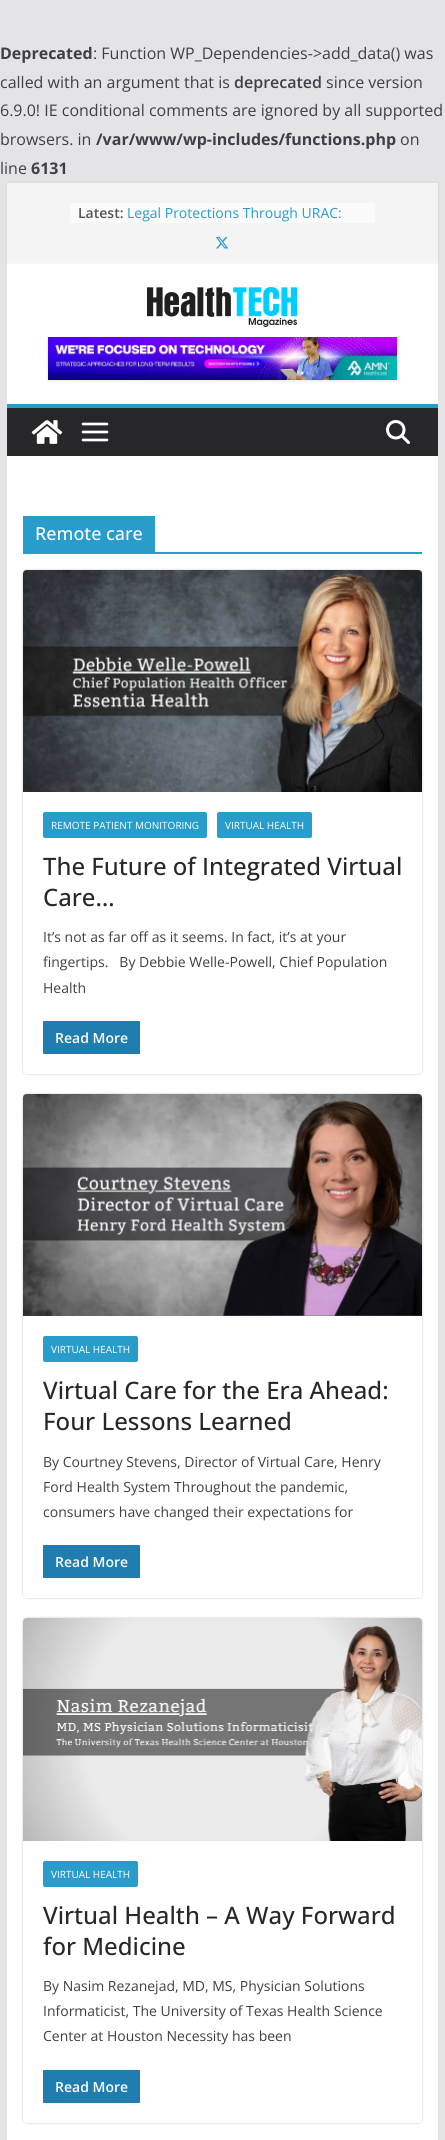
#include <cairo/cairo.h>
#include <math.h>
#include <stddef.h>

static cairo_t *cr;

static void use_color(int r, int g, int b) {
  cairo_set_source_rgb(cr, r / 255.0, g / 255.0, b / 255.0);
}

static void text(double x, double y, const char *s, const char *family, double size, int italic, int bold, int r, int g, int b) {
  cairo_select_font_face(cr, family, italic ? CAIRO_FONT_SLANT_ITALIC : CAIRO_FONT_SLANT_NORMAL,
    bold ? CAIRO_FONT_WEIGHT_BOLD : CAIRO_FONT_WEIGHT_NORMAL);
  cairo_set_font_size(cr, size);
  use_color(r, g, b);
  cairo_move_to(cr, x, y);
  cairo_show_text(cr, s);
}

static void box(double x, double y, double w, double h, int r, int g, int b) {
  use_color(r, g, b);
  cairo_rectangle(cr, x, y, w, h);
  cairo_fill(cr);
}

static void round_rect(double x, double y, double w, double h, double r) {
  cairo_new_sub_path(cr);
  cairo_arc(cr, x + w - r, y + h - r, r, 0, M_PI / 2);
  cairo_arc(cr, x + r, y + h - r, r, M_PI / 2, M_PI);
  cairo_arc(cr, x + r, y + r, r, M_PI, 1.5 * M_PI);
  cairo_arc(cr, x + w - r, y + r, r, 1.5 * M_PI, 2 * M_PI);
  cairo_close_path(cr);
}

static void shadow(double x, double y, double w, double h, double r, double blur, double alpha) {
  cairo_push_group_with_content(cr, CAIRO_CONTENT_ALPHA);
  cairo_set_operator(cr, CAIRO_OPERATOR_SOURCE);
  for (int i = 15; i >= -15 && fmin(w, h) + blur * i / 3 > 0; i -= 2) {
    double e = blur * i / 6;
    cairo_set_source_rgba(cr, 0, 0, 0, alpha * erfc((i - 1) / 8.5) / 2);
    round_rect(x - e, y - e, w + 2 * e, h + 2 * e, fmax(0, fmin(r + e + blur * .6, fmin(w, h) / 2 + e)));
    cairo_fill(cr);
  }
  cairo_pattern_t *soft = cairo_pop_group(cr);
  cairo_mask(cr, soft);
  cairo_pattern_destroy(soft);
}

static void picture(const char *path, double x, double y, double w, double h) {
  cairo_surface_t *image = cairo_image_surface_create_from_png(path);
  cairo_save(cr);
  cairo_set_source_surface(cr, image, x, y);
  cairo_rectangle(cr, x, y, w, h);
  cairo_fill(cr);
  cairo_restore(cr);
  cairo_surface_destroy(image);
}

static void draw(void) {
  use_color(228, 228, 231);
  cairo_paint(cr);
  box(7, 263, 431, 141, 255, 255, 255);
  use_color(0, 0, 0);
  shadow(7, 183, 431, 80, 0, 1, 0.1);
  box(7, 183, 431, 80, 244, 244, 245);
  box(70, 203, 305, 20, 250, 250, 250);
  picture("img_01.png", 215, 237, 14, 12);
  picture("img_02.png", 147, 287, 150, 40);
  use_color(0, 0, 0);
  shadow(48, 338, 349, 43, 0, 1.5, 0.1);
  picture("img_03.png", 48, 337, 349, 43);
  box(7, 408, 431, 48, 39, 39, 42);
  box(7, 404, 431, 4, 40, 157, 204);
  picture("img_04.png", 31, 420, 32, 24);
  picture("img_05.png", 81, 422, 28, 20);
  picture("img_06.png", 386, 420, 24, 24);
  box(7, 456, 431, 1684, 255, 255, 255);
  box(23, 552, 399, 2, 40, 157, 204);
  box(23, 516, 132, 36, 40, 157, 204);
  cairo_save(cr);
  cairo_set_fill_rule(cr, CAIRO_FILL_RULE_EVEN_ODD);
  cairo_new_path(cr);
  cairo_move_to(cr, 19, 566);
  cairo_line_to(cr, 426, 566);
  cairo_line_to(cr, 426, 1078);
  cairo_line_to(cr, 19, 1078);
  cairo_close_path(cr);
  cairo_move_to(cr, 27, 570);
  cairo_line_to(cr, 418, 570);
  cairo_curve_to(cr, 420, 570, 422, 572, 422, 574);
  cairo_line_to(cr, 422, 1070);
  cairo_curve_to(cr, 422, 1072, 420, 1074, 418, 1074);
  cairo_line_to(cr, 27, 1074);
  cairo_curve_to(cr, 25, 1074, 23, 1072, 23, 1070);
  cairo_line_to(cr, 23, 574);
  cairo_curve_to(cr, 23, 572, 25, 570, 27, 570);
  cairo_close_path(cr);
  cairo_clip(cr);
  use_color(0, 0, 0);
  shadow(23, 570, 399, 504, 4, 1, 0.24);
  cairo_restore(cr);
  picture("img_07.png", 23, 570, 399, 222);
  round_rect(43, 812, 164, 26, 2);
  cairo_fill(cr);
  round_rect(217, 812, 95, 26, 2);
  cairo_fill(cr);
  box(43, 1021, 97, 33, 40, 157, 204);
  use_color(32, 125, 175);
  round_rect(43, 1021, 97, 33, 2);
  cairo_fill(cr);
  cairo_save(cr);
  cairo_set_fill_rule(cr, CAIRO_FILL_RULE_EVEN_ODD);
  cairo_new_path(cr);
  cairo_move_to(cr, 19, 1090);
  cairo_line_to(cr, 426, 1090);
  cairo_line_to(cr, 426, 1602);
  cairo_line_to(cr, 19, 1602);
  cairo_close_path(cr);
  cairo_move_to(cr, 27, 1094);
  cairo_line_to(cr, 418, 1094);
  cairo_curve_to(cr, 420, 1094, 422, 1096, 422, 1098);
  cairo_line_to(cr, 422, 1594);
  cairo_curve_to(cr, 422, 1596, 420, 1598, 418, 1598);
  cairo_line_to(cr, 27, 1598);
  cairo_curve_to(cr, 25, 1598, 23, 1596, 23, 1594);
  cairo_line_to(cr, 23, 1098);
  cairo_curve_to(cr, 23, 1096, 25, 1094, 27, 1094);
  cairo_close_path(cr);
  cairo_clip(cr);
  use_color(0, 0, 0);
  shadow(23, 1094, 399, 504, 4, 1, 0.24);
  cairo_restore(cr);
  picture("img_08.png", 23, 1094, 399, 222);
  use_color(40, 157, 204);
  round_rect(43, 1336, 95, 26, 2);
  cairo_fill(cr);
  box(43, 1545, 97, 33, 40, 157, 204);
  use_color(32, 125, 175);
  round_rect(43, 1545, 97, 33, 2);
  cairo_fill(cr);
  cairo_save(cr);
  cairo_set_fill_rule(cr, CAIRO_FILL_RULE_EVEN_ODD);
  cairo_new_path(cr);
  cairo_move_to(cr, 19, 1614);
  cairo_line_to(cr, 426, 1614);
  cairo_line_to(cr, 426, 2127);
  cairo_line_to(cr, 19, 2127);
  cairo_close_path(cr);
  cairo_move_to(cr, 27, 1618);
  cairo_line_to(cr, 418, 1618);
  cairo_curve_to(cr, 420, 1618, 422, 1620, 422, 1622);
  cairo_line_to(cr, 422, 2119);
  cairo_curve_to(cr, 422, 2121, 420, 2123, 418, 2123);
  cairo_line_to(cr, 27, 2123);
  cairo_curve_to(cr, 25, 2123, 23, 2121, 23, 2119);
  cairo_line_to(cr, 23, 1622);
  cairo_curve_to(cr, 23, 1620, 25, 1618, 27, 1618);
  cairo_close_path(cr);
  cairo_clip(cr);
  use_color(0, 0, 0);
  shadow(23, 1618, 399, 505, 4, 1, 0.24);
  cairo_restore(cr);
  picture("img_09.png", 23, 1618, 399, 223);
  use_color(40, 157, 204);
  round_rect(43, 1861, 95, 26, 2);
  cairo_fill(cr);
  box(43, 2070, 97, 33, 40, 157, 204);
  use_color(32, 125, 175);
  round_rect(43, 2070, 97, 33, 2);
  cairo_fill(cr);
  text(0, 59, "Deprecated", "Open Sans", 16, 0, 1, 63, 63, 70);
  text(93, 59, ": Function WP_Dependencies->add_data() was", "Open Sans", 16, 0, 0, 63, 63, 70);
  text(0, 88, "called with an argument that is", "Open Sans", 16, 0, 0, 63, 63, 70);
  text(234, 88, "deprecated", "Open Sans SemiBold", 16, 0, 0, 63, 63, 70);
  text(326, 88, "since version", "Open Sans", 16, 0, 0, 63, 63, 70);
  text(0, 116, "6.9.0! IE conditional comments are ignored by all supported", "Open Sans", 16, 0, 0, 63, 63, 70);
  text(0, 145, "browsers. in", "Open Sans", 16, 0, 0, 63, 63, 70);
  text(96, 145, "/var/www/wp-includes/functions.php", "Open Sans", 16, 0, 1, 63, 63, 70);
  text(400, 145, "on", "Open Sans", 16, 0, 0, 63, 63, 70);
  text(0, 174, "line", "Open Sans", 16, 0, 0, 63, 63, 70);
  text(31, 174, "6131", "Open Sans", 16, 0, 1, 63, 63, 70);
  text(78, 218, "Latest:", "Open Sans SemiBold", 14, 0, 0, 85, 85, 85);
  text(127, 218, "Legal Protections Through URAC:", "Open Sans", 14, 0, 0, 40, 157, 204);
  text(35, 540, "Remote care", "Open Sans Medium", 18, 0, 0, 255, 255, 255);
  text(51, 829, "REMOTE PATIENT MONITORING", "Open Sans", 10, 0, 0, 255, 255, 255);
  text(225, 829, "VIRTUAL HEALTH", "Open Sans", 10, 0, 0, 255, 255, 255);
  text(43, 875, "The Future of Integrated Virtual", "Open Sans Medium", 24, 0, 0, 39, 39, 42);
  text(43, 906, "Care…", "Open Sans Medium", 24, 0, 0, 39, 39, 42);
  text(43, 942, "It’s not as far off as it seems. In fact, it’s at your", "Open Sans", 14, 0, 0, 63, 63, 70);
  text(43, 967, "fingertips.   By Debbie Welle-Powell, Chief Population", "Open Sans", 14, 0, 0, 63, 63, 70);
  text(43, 993, "Health", "Open Sans", 14, 0, 0, 63, 63, 70);
  text(55, 1043, "Read More", "Open Sans SemiBold", 14, 0, 0, 255, 255, 255);
  text(51, 1353, "VIRTUAL HEALTH", "Open Sans", 10, 0, 0, 255, 255, 255);
  text(43, 1399, "Virtual Care for the Era Ahead:", "Open Sans Medium", 24, 0, 0, 39, 39, 42);
  text(43, 1430, "Four Lessons Learned", "Open Sans Medium", 24, 0, 0, 39, 39, 42);
  text(43, 1467, "By Courtney Stevens, Director of Virtual Care, Henry", "Open Sans", 14, 0, 0, 63, 63, 70);
  text(43, 1492, "Ford Health System Throughout the pandemic,", "Open Sans", 14, 0, 0, 63, 63, 70);
  text(43, 1517, "consumers have changed their expectations for", "Open Sans", 14, 0, 0, 63, 63, 70);
  text(55, 1567, "Read More", "Open Sans SemiBold", 14, 0, 0, 255, 255, 255);
  text(51, 1878, "VIRTUAL HEALTH", "Open Sans", 10, 0, 0, 255, 255, 255);
  text(43, 1924, "Virtual Health – A Way Forward", "Open Sans Medium", 24, 0, 0, 39, 39, 42);
  text(43, 1955, "for Medicine", "Open Sans Medium", 24, 0, 0, 39, 39, 42);
  text(43, 1991, "By Nasim Rezanejad, MD, MS, Physician Solutions", "Open Sans", 14, 0, 0, 63, 63, 70);
  text(43, 2016, "Informaticist, The University of Texas Health Science", "Open Sans", 14, 0, 0, 63, 63, 70);
  text(43, 2041, "Center at Houston Necessity has been", "Open Sans", 14, 0, 0, 63, 63, 70);
  text(55, 2092, "Read More", "Open Sans SemiBold", 14, 0, 0, 255, 255, 255);
}

int main(void) {
  cairo_surface_t *surface = cairo_image_surface_create(CAIRO_FORMAT_RGB24, 445, 2140);
  cr = cairo_create(surface);
  cairo_font_options_t *options = cairo_font_options_create();
  cairo_font_options_set_hint_metrics(options, CAIRO_HINT_METRICS_OFF);
  cairo_font_options_set_hint_style(options, CAIRO_HINT_STYLE_NONE);
  cairo_set_font_options(cr, options);
  cairo_set_miter_limit(cr, 4);
  draw();
  cairo_surface_write_to_png(surface, "out.png");
  cairo_font_options_destroy(options);
  cairo_destroy(cr);
  cairo_surface_destroy(surface);
  return 0;
}
